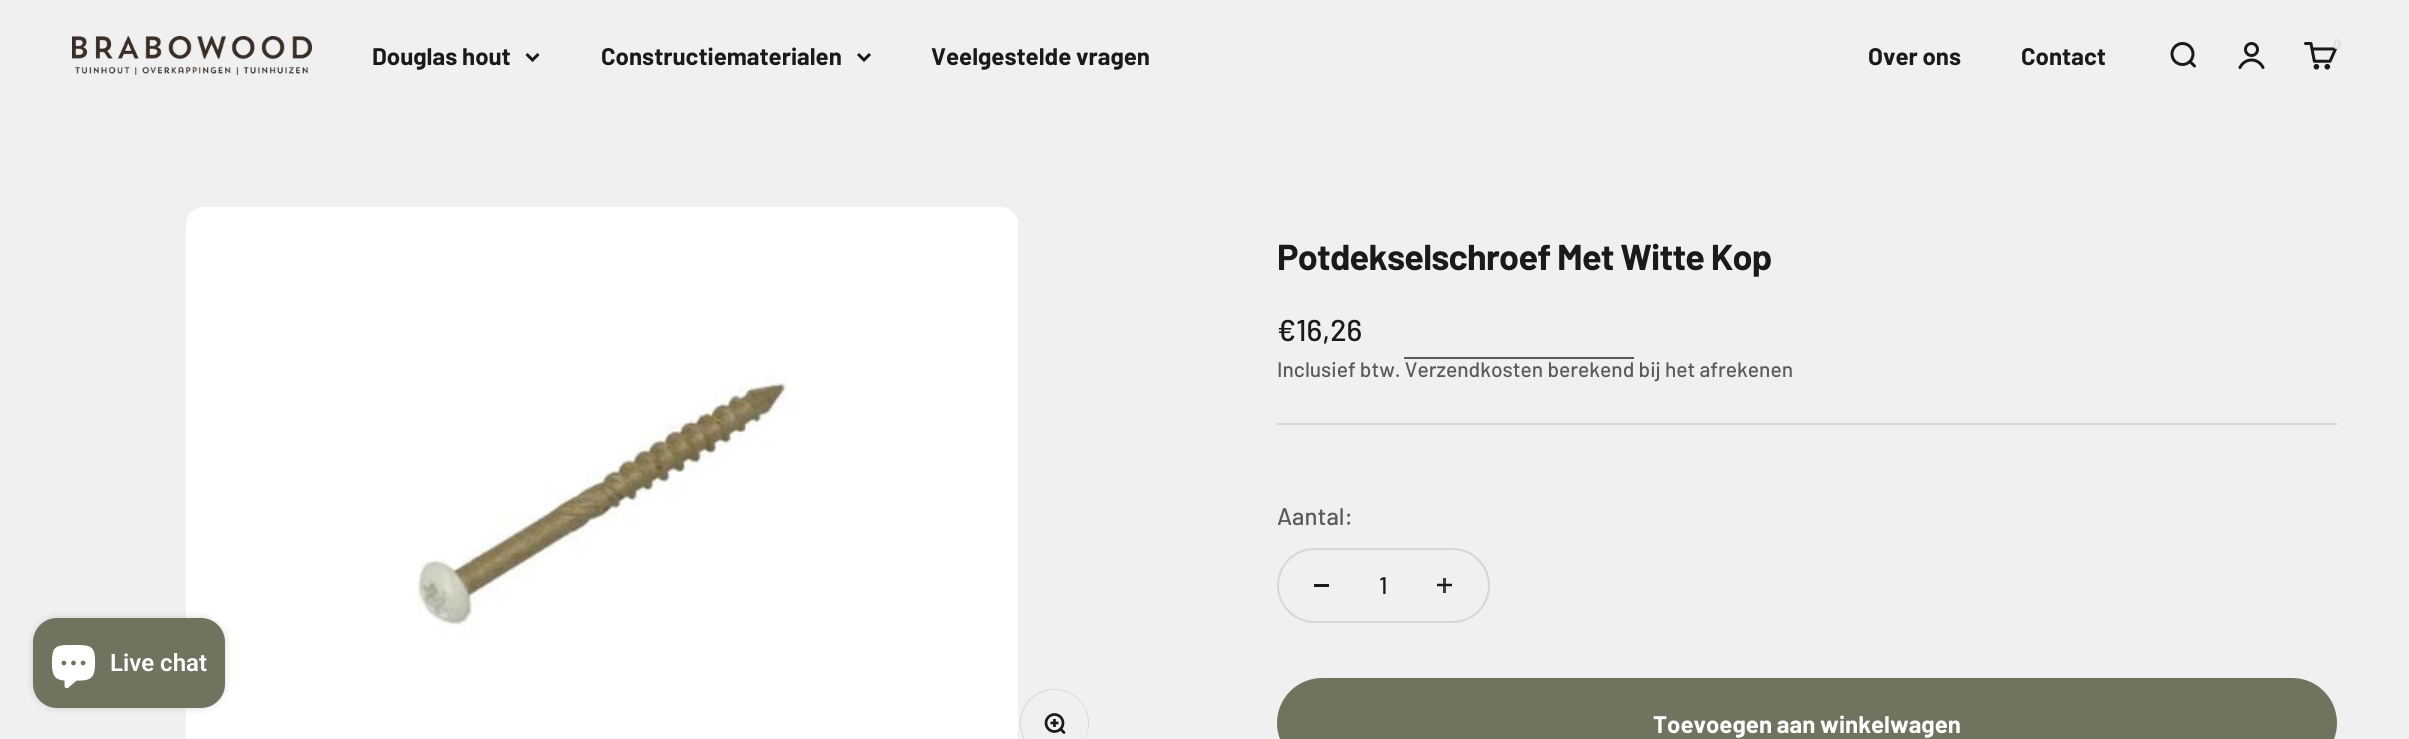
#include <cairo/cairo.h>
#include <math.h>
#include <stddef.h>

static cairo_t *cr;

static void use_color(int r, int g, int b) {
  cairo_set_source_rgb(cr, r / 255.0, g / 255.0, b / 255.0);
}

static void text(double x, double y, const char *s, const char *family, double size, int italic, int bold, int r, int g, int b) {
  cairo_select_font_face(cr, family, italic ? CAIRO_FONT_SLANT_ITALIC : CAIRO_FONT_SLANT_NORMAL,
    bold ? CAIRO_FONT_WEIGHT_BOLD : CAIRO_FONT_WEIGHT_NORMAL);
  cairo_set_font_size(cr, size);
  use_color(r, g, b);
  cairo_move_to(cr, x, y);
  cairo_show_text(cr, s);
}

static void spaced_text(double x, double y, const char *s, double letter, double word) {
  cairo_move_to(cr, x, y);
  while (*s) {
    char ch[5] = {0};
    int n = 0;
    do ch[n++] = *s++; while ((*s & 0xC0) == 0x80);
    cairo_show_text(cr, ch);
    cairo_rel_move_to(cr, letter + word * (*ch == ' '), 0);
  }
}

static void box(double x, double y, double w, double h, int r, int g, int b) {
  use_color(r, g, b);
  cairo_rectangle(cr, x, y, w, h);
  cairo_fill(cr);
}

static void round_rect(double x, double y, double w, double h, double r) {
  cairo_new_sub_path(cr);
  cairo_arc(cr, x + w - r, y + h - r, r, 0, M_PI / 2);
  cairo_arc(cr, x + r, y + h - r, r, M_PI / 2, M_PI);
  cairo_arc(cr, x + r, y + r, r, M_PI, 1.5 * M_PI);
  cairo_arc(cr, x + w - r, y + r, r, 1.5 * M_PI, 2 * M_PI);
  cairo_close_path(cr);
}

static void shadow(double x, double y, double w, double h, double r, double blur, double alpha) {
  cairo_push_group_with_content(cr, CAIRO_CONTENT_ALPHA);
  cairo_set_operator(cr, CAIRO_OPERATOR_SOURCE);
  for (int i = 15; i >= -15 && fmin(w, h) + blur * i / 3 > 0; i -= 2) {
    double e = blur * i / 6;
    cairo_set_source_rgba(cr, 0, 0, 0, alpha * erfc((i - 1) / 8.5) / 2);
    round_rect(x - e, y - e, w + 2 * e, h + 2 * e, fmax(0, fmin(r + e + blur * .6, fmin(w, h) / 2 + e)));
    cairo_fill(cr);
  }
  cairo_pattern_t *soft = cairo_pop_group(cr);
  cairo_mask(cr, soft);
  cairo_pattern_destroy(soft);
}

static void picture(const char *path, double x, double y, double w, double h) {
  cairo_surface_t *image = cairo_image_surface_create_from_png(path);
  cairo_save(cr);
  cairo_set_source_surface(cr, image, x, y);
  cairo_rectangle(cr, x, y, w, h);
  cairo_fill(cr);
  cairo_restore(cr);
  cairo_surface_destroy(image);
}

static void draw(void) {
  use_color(240, 240, 240);
  cairo_paint(cr);
  picture("img_01.png", 72, 36, 240, 39);
  cairo_new_path(cr);
  cairo_move_to(cr, 526.5, 54);
  cairo_line_to(cr, 532.5, 60);
  cairo_line_to(cr, 538.5, 54);
  use_color(26, 26, 26);
  cairo_set_line_width(cr, 3);
  cairo_stroke(cr);
  cairo_new_path(cr);
  cairo_move_to(cr, 858, 54);
  cairo_line_to(cr, 864, 60);
  cairo_line_to(cr, 870, 54);
  cairo_stroke(cr);
  cairo_arc(cr, 2182.5, 54, 10.5, 0, 2 * M_PI);
  cairo_stroke(cr);
  cairo_new_path(cr);
  cairo_move_to(cr, 2190, 61.5);
  cairo_line_to(cr, 2194.5, 66);
  cairo_set_line_cap(cr, CAIRO_LINE_CAP_ROUND);
  cairo_set_line_join(cr, CAIRO_LINE_JOIN_ROUND);
  cairo_stroke(cr);
  cairo_arc(cr, 2251.5, 49.5, 6, 0, 2 * M_PI);
  cairo_set_line_cap(cr, CAIRO_LINE_CAP_BUTT);
  cairo_set_line_join(cr, CAIRO_LINE_JOIN_MITER);
  cairo_stroke(cr);
  cairo_new_path(cr);
  cairo_move_to(cr, 2240, 67.5);
  cairo_curve_to(cr, 2245, 57.5, 2258, 57.5, 2263, 67.5);
  cairo_set_line_cap(cr, CAIRO_LINE_CAP_ROUND);
  cairo_stroke(cr);
  picture("img_02.png", 2304, 42, 33, 28);
  picture("img_04.png", 186, 207, 832, 532);
  use_color(0, 0, 0);
  shadow(33, 618, 192, 90, 24, 4, 0.15);
  use_color(111, 116, 94);
  round_rect(33, 618, 192, 90, 24);
  cairo_fill(cr);
  picture("img_03.png", 51, 645, 45, 44);
  cairo_arc(cr, 1054.5, 723.5, 34, 0, 2 * M_PI);
  use_color(214, 214, 214);
  cairo_set_line_width(cr, 1);
  cairo_set_line_cap(cr, CAIRO_LINE_CAP_BUTT);
  cairo_stroke(cr);
  use_color(240, 240, 240);
  round_rect(1022, 690, 66, 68, 33);
  cairo_fill(cr);
  cairo_arc(cr, 1054.5, 723, 8.5, 0, 2 * M_PI);
  use_color(26, 26, 26);
  cairo_set_line_width(cr, 2.7);
  cairo_stroke(cr);
  cairo_new_path(cr);
  cairo_move_to(cr, 1060.5, 729);
  cairo_line_to(cr, 1064, 732.5);
  cairo_set_line_cap(cr, CAIRO_LINE_CAP_ROUND);
  cairo_set_line_join(cr, CAIRO_LINE_JOIN_ROUND);
  cairo_stroke(cr);
  cairo_new_path(cr);
  cairo_move_to(cr, 1054.5, 719);
  cairo_line_to(cr, 1054.5, 727);
  cairo_move_to(cr, 1050.5, 723);
  cairo_line_to(cr, 1058.5, 723);
  cairo_set_line_cap(cr, CAIRO_LINE_CAP_BUTT);
  cairo_set_line_join(cr, CAIRO_LINE_JOIN_MITER);
  cairo_stroke(cr);
  box(1404, 357, 230, 2, 90, 90, 90);
  box(1277, 423, 1060, 2, 214, 214, 214);
  round_rect(1278, 549, 211, 73, 36.5);
  cairo_set_line_width(cr, 2);
  cairo_stroke(cr);
  box(1314, 584, 15, 3, 26, 26, 26);
  box(1443, 578, 3, 15, 62, 62, 62);
  cairo_new_path(cr);
  cairo_move_to(cr, 1437, 585);
  cairo_line_to(cr, 1452, 585);
  use_color(26, 26, 26);
  cairo_set_line_width(cr, 2.5);
  cairo_stroke(cr);
  use_color(111, 116, 94);
  round_rect(1277, 678, 1060, 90, 45);
  cairo_fill(cr);
  text(372, 65, "Douglas hout", "Barlow", 24, 0, 1, 26, 26, 26);
  text(601, 65, "Constructiematerialen", "Barlow", 24, 0, 1, 26, 26, 26);
  text(931, 65, "Veelgestelde vragen", "Barlow", 24, 0, 1, 26, 26, 26);
  text(2333, 49, "0", "Barlow", 14, 0, 1, 223, 223, 223);
  text(1868, 65, "Over ons", "Barlow", 24, 0, 1, 26, 26, 26);
  text(2021, 65, "Contact", "Barlow", 24, 0, 1, 26, 26, 26);
  text(110, 671, "Live chat", "Roboto SemiBold", 24, 0, 0, 255, 255, 255);
  cairo_select_font_face(cr, "Barlow", CAIRO_FONT_SLANT_NORMAL, CAIRO_FONT_WEIGHT_BOLD);
  cairo_set_font_size(cr, 36);
  use_color(26, 26, 26);
  spaced_text(1277, 270, "Potdekselschroef Met Witte Kop", -0.75, 0);
  text(1277, 341, "€16,26", "Barlow Medium", 30, 0, 0, 26, 26, 26);
  text(1277, 377, "Inclusief btw. Verzendkosten berekend bij het afrekenen", "Barlow Medium", 21, 0, 0, 90, 90, 90);
  text(1277, 525, "Aantal:", "Barlow Medium", 24, 0, 0, 90, 90, 90);
  text(1379, 594, "1", "Barlow Medium", 24, 0, 0, 26, 26, 26);
  text(1653, 733, "Toevoegen aan winkelwagen", "Barlow", 24, 0, 1, 255, 255, 255);
}

int main(void) {
  cairo_surface_t *surface = cairo_image_surface_create(CAIRO_FORMAT_RGB24, 2409, 739);
  cr = cairo_create(surface);
  cairo_font_options_t *options = cairo_font_options_create();
  cairo_font_options_set_hint_metrics(options, CAIRO_HINT_METRICS_OFF);
  cairo_font_options_set_hint_style(options, CAIRO_HINT_STYLE_NONE);
  cairo_set_font_options(cr, options);
  cairo_set_miter_limit(cr, 4);
  draw();
  cairo_surface_write_to_png(surface, "out.png");
  cairo_font_options_destroy(options);
  cairo_destroy(cr);
  cairo_surface_destroy(surface);
  return 0;
}
